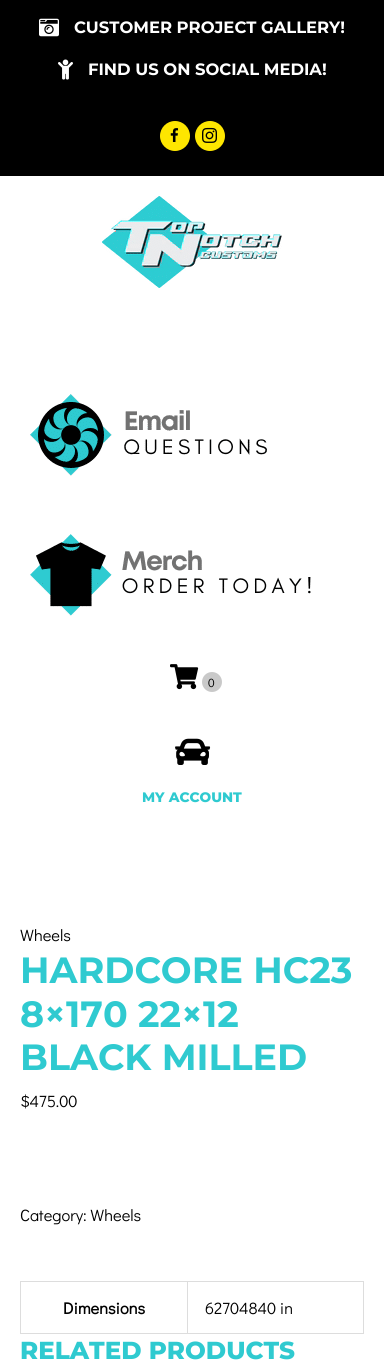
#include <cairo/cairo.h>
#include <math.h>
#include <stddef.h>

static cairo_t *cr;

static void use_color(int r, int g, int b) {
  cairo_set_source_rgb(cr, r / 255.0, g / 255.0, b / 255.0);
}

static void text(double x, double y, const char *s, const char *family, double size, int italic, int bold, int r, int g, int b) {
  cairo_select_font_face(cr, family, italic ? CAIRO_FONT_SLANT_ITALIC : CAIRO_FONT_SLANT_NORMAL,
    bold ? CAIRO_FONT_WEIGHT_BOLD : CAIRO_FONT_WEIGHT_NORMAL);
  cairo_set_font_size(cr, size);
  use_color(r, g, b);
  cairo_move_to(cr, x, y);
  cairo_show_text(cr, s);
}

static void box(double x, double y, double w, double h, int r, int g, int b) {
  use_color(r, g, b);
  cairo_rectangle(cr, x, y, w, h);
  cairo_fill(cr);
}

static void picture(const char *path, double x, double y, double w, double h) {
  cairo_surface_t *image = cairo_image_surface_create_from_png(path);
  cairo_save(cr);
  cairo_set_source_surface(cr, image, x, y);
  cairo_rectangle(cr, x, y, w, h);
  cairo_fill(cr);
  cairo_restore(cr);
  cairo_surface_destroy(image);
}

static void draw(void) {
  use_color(255, 255, 255);
  cairo_paint(cr);
  box(0, 0, 384, 176, 0, 0, 0);
  picture("img_01.png", 39, 18, 20, 19);
  picture("img_02.png", 58, 59, 15, 21);
  use_color(254, 230, 0);
  cairo_arc(cr, 175, 136, 15, 0, 2 * M_PI);
  cairo_fill(cr);
  picture("img_03.png", 170, 128, 9, 14);
  cairo_arc(cr, 210, 136, 15, 0, 2 * M_PI);
  cairo_fill(cr);
  picture("img_04.png", 202, 127, 15, 16);
  picture("img_05.png", 102, 196, 180, 92);
  picture("img_06.png", 30, 394, 237, 82);
  picture("img_07.png", 30, 534, 281, 82);
  picture("img_08.png", 170, 664, 29, 26);
  use_color(201, 201, 201);
  cairo_arc(cr, 212, 682, 10, 0, 2 * M_PI);
  cairo_fill(cr);
  picture("img_09.png", 175, 738, 36, 27);
  box(20, 1281, 344, 1, 221, 221, 221);
  box(20, 1281, 1, 53, 221, 221, 221);
  box(187, 1282, 1, 52, 221, 221, 221);
  box(21, 1333, 167, 1, 221, 221, 221);
  box(363, 1282, 1, 52, 221, 221, 221);
  box(188, 1333, 176, 1, 221, 221, 221);
  text(74, 33, "CUSTOMER PROJECT GALLERY!", "Montserrat", 16.4, 0, 1, 255, 255, 255);
  text(88, 75, "FIND US ON SOCIAL MEDIA!", "Montserrat", 16.4, 0, 1, 255, 255, 255);
  text(208, 687, "0", "Didact Gothic", 12, 0, 0, 0, 0, 0);
  text(142, 802, "MY ACCOUNT", "Montserrat ExtraBold", 13.75, 0, 0, 47, 202, 208);
  text(20, 941, "Wheels", "Didact Gothic", 16.4, 0, 0, 0, 0, 0);
  text(20, 983, "HARDCORE HC23", "Montserrat", 36.5, 0, 1, 47, 202, 208);
  text(20, 1027, "8×170 22×12", "Montserrat", 36.5, 0, 1, 47, 202, 208);
  text(20, 1070, "BLACK MILLED", "Montserrat", 36.5, 0, 1, 47, 202, 208);
  text(20, 1107, "$475.00", "Didact Gothic", 16.4, 0, 0, 0, 0, 0);
  text(20, 1221, "Category: Wheels", "Didact Gothic", 16.4, 0, 0, 0, 0, 0);
  text(63, 1314, "Dimensions", "Didact Gothic", 16.4, 0, 1, 0, 0, 0);
  text(205, 1314, "62704840 in", "Didact Gothic", 16.4, 0, 0, 0, 0, 0);
  text(20, 1359, "RELATED PRODUCTS", "Montserrat ExtraBold", 24.6, 0, 0, 47, 202, 208);
}

int main(void) {
  cairo_surface_t *surface = cairo_image_surface_create(CAIRO_FORMAT_RGB24, 384, 1368);
  cr = cairo_create(surface);
  cairo_font_options_t *options = cairo_font_options_create();
  cairo_font_options_set_hint_metrics(options, CAIRO_HINT_METRICS_OFF);
  cairo_font_options_set_hint_style(options, CAIRO_HINT_STYLE_NONE);
  cairo_set_font_options(cr, options);
  cairo_set_miter_limit(cr, 4);
  draw();
  cairo_surface_write_to_png(surface, "out.png");
  cairo_font_options_destroy(options);
  cairo_destroy(cr);
  cairo_surface_destroy(surface);
  return 0;
}
